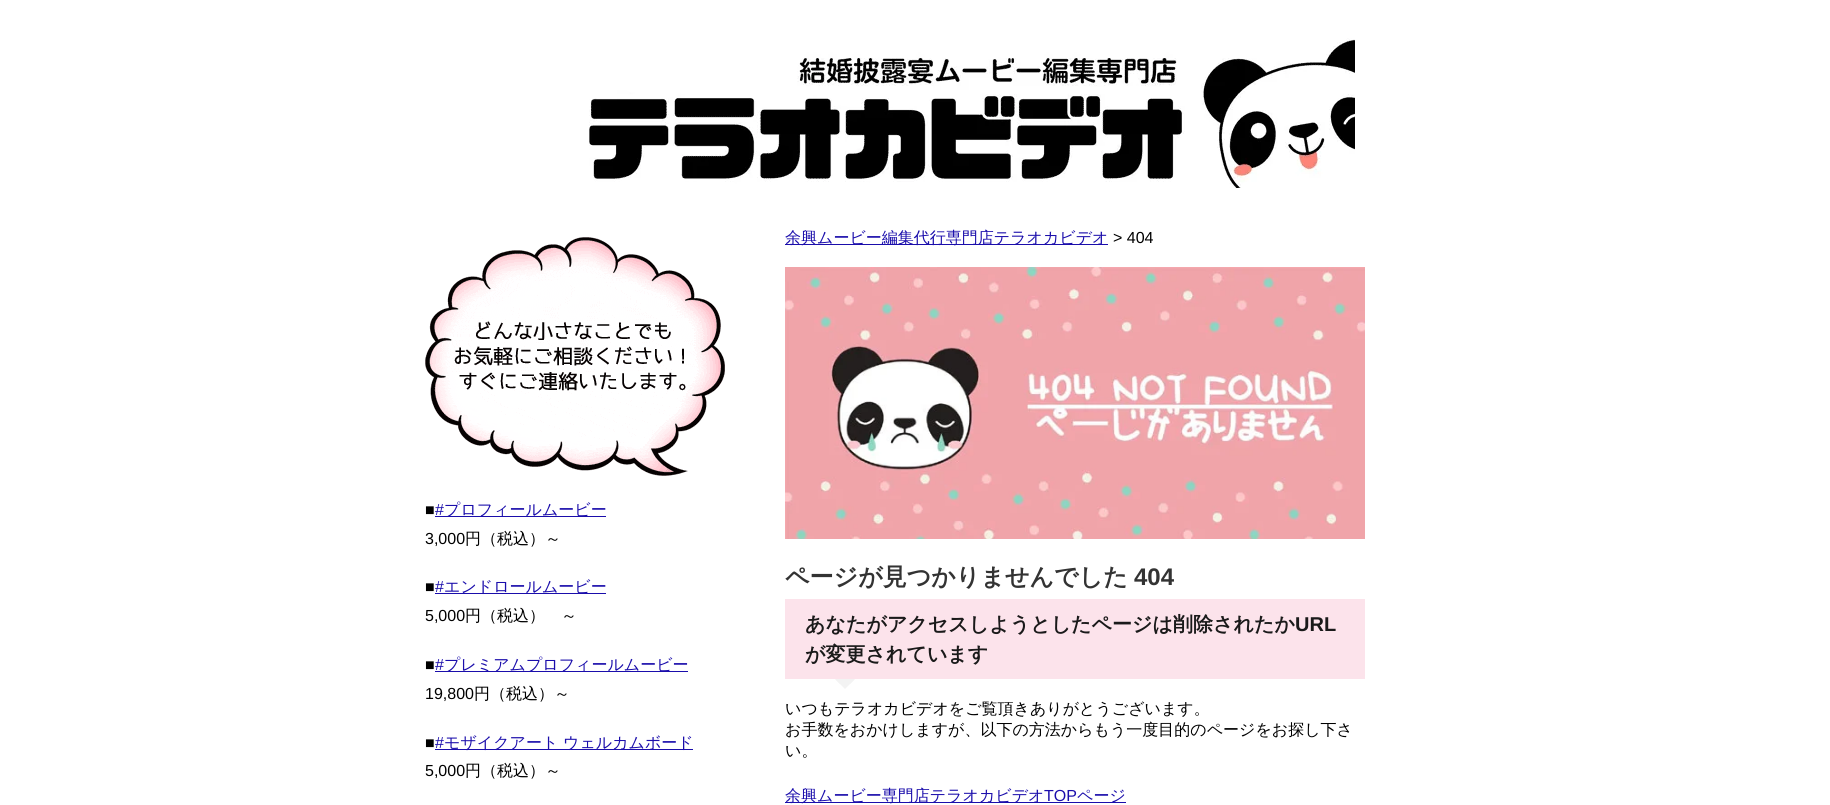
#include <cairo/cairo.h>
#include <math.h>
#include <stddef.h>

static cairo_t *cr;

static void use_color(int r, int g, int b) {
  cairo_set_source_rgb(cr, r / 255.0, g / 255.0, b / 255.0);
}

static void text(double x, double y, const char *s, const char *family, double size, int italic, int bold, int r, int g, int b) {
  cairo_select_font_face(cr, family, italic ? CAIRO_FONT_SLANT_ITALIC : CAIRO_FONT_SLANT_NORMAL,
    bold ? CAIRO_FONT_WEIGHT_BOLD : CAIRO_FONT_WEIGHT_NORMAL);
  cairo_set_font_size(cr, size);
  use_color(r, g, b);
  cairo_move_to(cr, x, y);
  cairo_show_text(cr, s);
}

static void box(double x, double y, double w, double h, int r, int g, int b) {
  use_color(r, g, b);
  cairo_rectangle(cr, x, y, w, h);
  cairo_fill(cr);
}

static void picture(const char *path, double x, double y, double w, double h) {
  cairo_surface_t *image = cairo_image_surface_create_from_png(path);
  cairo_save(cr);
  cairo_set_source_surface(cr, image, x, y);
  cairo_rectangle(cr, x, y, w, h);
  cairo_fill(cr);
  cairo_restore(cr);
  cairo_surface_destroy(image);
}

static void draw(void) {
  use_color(255, 255, 255);
  cairo_paint(cr);
  picture("img_01.png", 589, 38, 766, 150);
  picture("img_02.png", 425, 237, 300, 239);
  box(435, 516, 171, 1, 26, 13, 171);
  box(435, 593, 171, 1, 26, 13, 171);
  box(435, 671, 253, 1, 26, 13, 171);
  box(435, 749, 258, 1, 26, 13, 171);
  box(785, 244, 323, 1, 26, 13, 171);
  picture("img_03.png", 785, 267, 580, 272);
  box(785, 599, 580, 80, 252, 227, 235);
  use_color(243, 243, 243);
  cairo_new_path(cr);
  cairo_move_to(cr, 835, 679);
  cairo_line_to(cr, 855, 679);
  cairo_line_to(cr, 845, 689);
  cairo_close_path(cr);
  cairo_fill(cr);
  cairo_new_path(cr);
  cairo_move_to(cr, 837, 679);
  cairo_line_to(cr, 835.5, 679.5);
  cairo_line_to(cr, 840, 684);
  cairo_line_to(cr, 850, 684);
  cairo_line_to(cr, 854.5, 679.5);
  cairo_line_to(cr, 853, 679);
  cairo_close_path(cr);
  cairo_fill(cr);
  box(785, 802, 341, 1, 26, 13, 171);
  text(425, 515, "■", "Liberation Sans", 16, 0, 0, 0, 0, 0);
  text(435, 515, "#", "Liberation Sans", 16, 0, 0, 26, 13, 171);
  text(444, 515, "プロフィールムービー", "WenQuanYi Zen Hei Medium", 16, 0, 0, 26, 13, 171);
  text(425, 544, "3,000", "Liberation Sans", 16, 0, 0, 0, 0, 0);
  text(465, 544, "円（税込）～", "WenQuanYi Zen Hei Medium", 16, 0, 0, 0, 0, 0);
  text(425, 592, "■", "Liberation Sans", 16, 0, 0, 0, 0, 0);
  text(435, 592, "#", "Liberation Sans", 16, 0, 0, 26, 13, 171);
  text(444, 592, "エンドロールムービー", "WenQuanYi Zen Hei Medium", 16, 0, 0, 26, 13, 171);
  text(425, 621, "5,000", "Liberation Sans", 16, 0, 0, 0, 0, 0);
  text(465, 621, "円（税込）　～", "WenQuanYi Zen Hei Medium", 16, 0, 0, 0, 0, 0);
  text(425, 670, "■", "Liberation Sans", 16, 0, 0, 0, 0, 0);
  text(435, 670, "#", "Liberation Sans", 16, 0, 0, 26, 13, 171);
  text(444, 670, "プレミアムプロフィールムービー", "WenQuanYi Zen Hei Medium", 16, 0, 0, 26, 13, 171);
  text(425, 699, "19,800", "Liberation Sans", 16, 0, 0, 0, 0, 0);
  text(474, 699, "円（税込）～", "WenQuanYi Zen Hei Medium", 16, 0, 0, 0, 0, 0);
  text(425, 748, "■", "Liberation Sans", 16, 0, 0, 0, 0, 0);
  text(435, 748, "#", "Liberation Sans", 16, 0, 0, 26, 13, 171);
  text(444, 748, "モザイクアート ウェルカムボード", "WenQuanYi Zen Hei Medium", 16, 0, 0, 26, 13, 171);
  text(425, 776, "5,000", "Liberation Sans", 16, 0, 0, 0, 0, 0);
  text(465, 776, "円（税込）～", "WenQuanYi Zen Hei Medium", 16, 0, 0, 0, 0, 0);
  text(785, 243, "余興ムービー編集代行専門店テラオカビデオ", "WenQuanYi Zen Hei Medium", 16, 0, 0, 26, 13, 171);
  text(1113, 243, "> 404", "Liberation Sans", 16, 0, 0, 0, 0, 0);
  text(785, 585, "ページが見つかりませんでした", "WenQuanYi Zen Hei", 24, 0, 1, 51, 51, 51);
  text(1134, 585, "404", "Liberation Sans", 24, 0, 1, 51, 51, 51);
  text(805, 631, "あなたがアクセスしようとしたページは削除されたか", "WenQuanYi Zen Hei", 20, 0, 1, 26, 26, 26);
  text(1295, 631, "URL", "Liberation Sans", 20, 0, 1, 26, 26, 26);
  text(805, 661, "が変更されています", "WenQuanYi Zen Hei", 20, 0, 1, 26, 26, 26);
  text(785, 714, "いつもテラオカビデオをご覧頂きありがとうございます。", "WenQuanYi Zen Hei Medium", 16, 0, 0, 0, 0, 0);
  text(785, 735, "お手数をおかけしますが、以下の方法からもう一度目的のページをお探し下さ", "WenQuanYi Zen Hei Medium", 16, 0, 0, 0, 0, 0);
  text(785, 756, "い。", "WenQuanYi Zen Hei Medium", 16, 0, 0, 0, 0, 0);
  text(785, 801, "余興ムービー専門店テラオカビデオ", "WenQuanYi Zen Hei Medium", 16, 0, 0, 26, 13, 171);
  text(1044, 801, "TOP", "Liberation Sans", 16, 0, 0, 26, 13, 171);
  text(1077, 801, "ページ", "WenQuanYi Zen Hei Medium", 16, 0, 0, 26, 13, 171);
}

int main(void) {
  cairo_surface_t *surface = cairo_image_surface_create(CAIRO_FORMAT_RGB24, 1830, 805);
  cr = cairo_create(surface);
  cairo_font_options_t *options = cairo_font_options_create();
  cairo_font_options_set_hint_metrics(options, CAIRO_HINT_METRICS_OFF);
  cairo_font_options_set_hint_style(options, CAIRO_HINT_STYLE_NONE);
  cairo_set_font_options(cr, options);
  cairo_set_miter_limit(cr, 4);
  draw();
  cairo_surface_write_to_png(surface, "out.png");
  cairo_font_options_destroy(options);
  cairo_destroy(cr);
  cairo_surface_destroy(surface);
  return 0;
}
